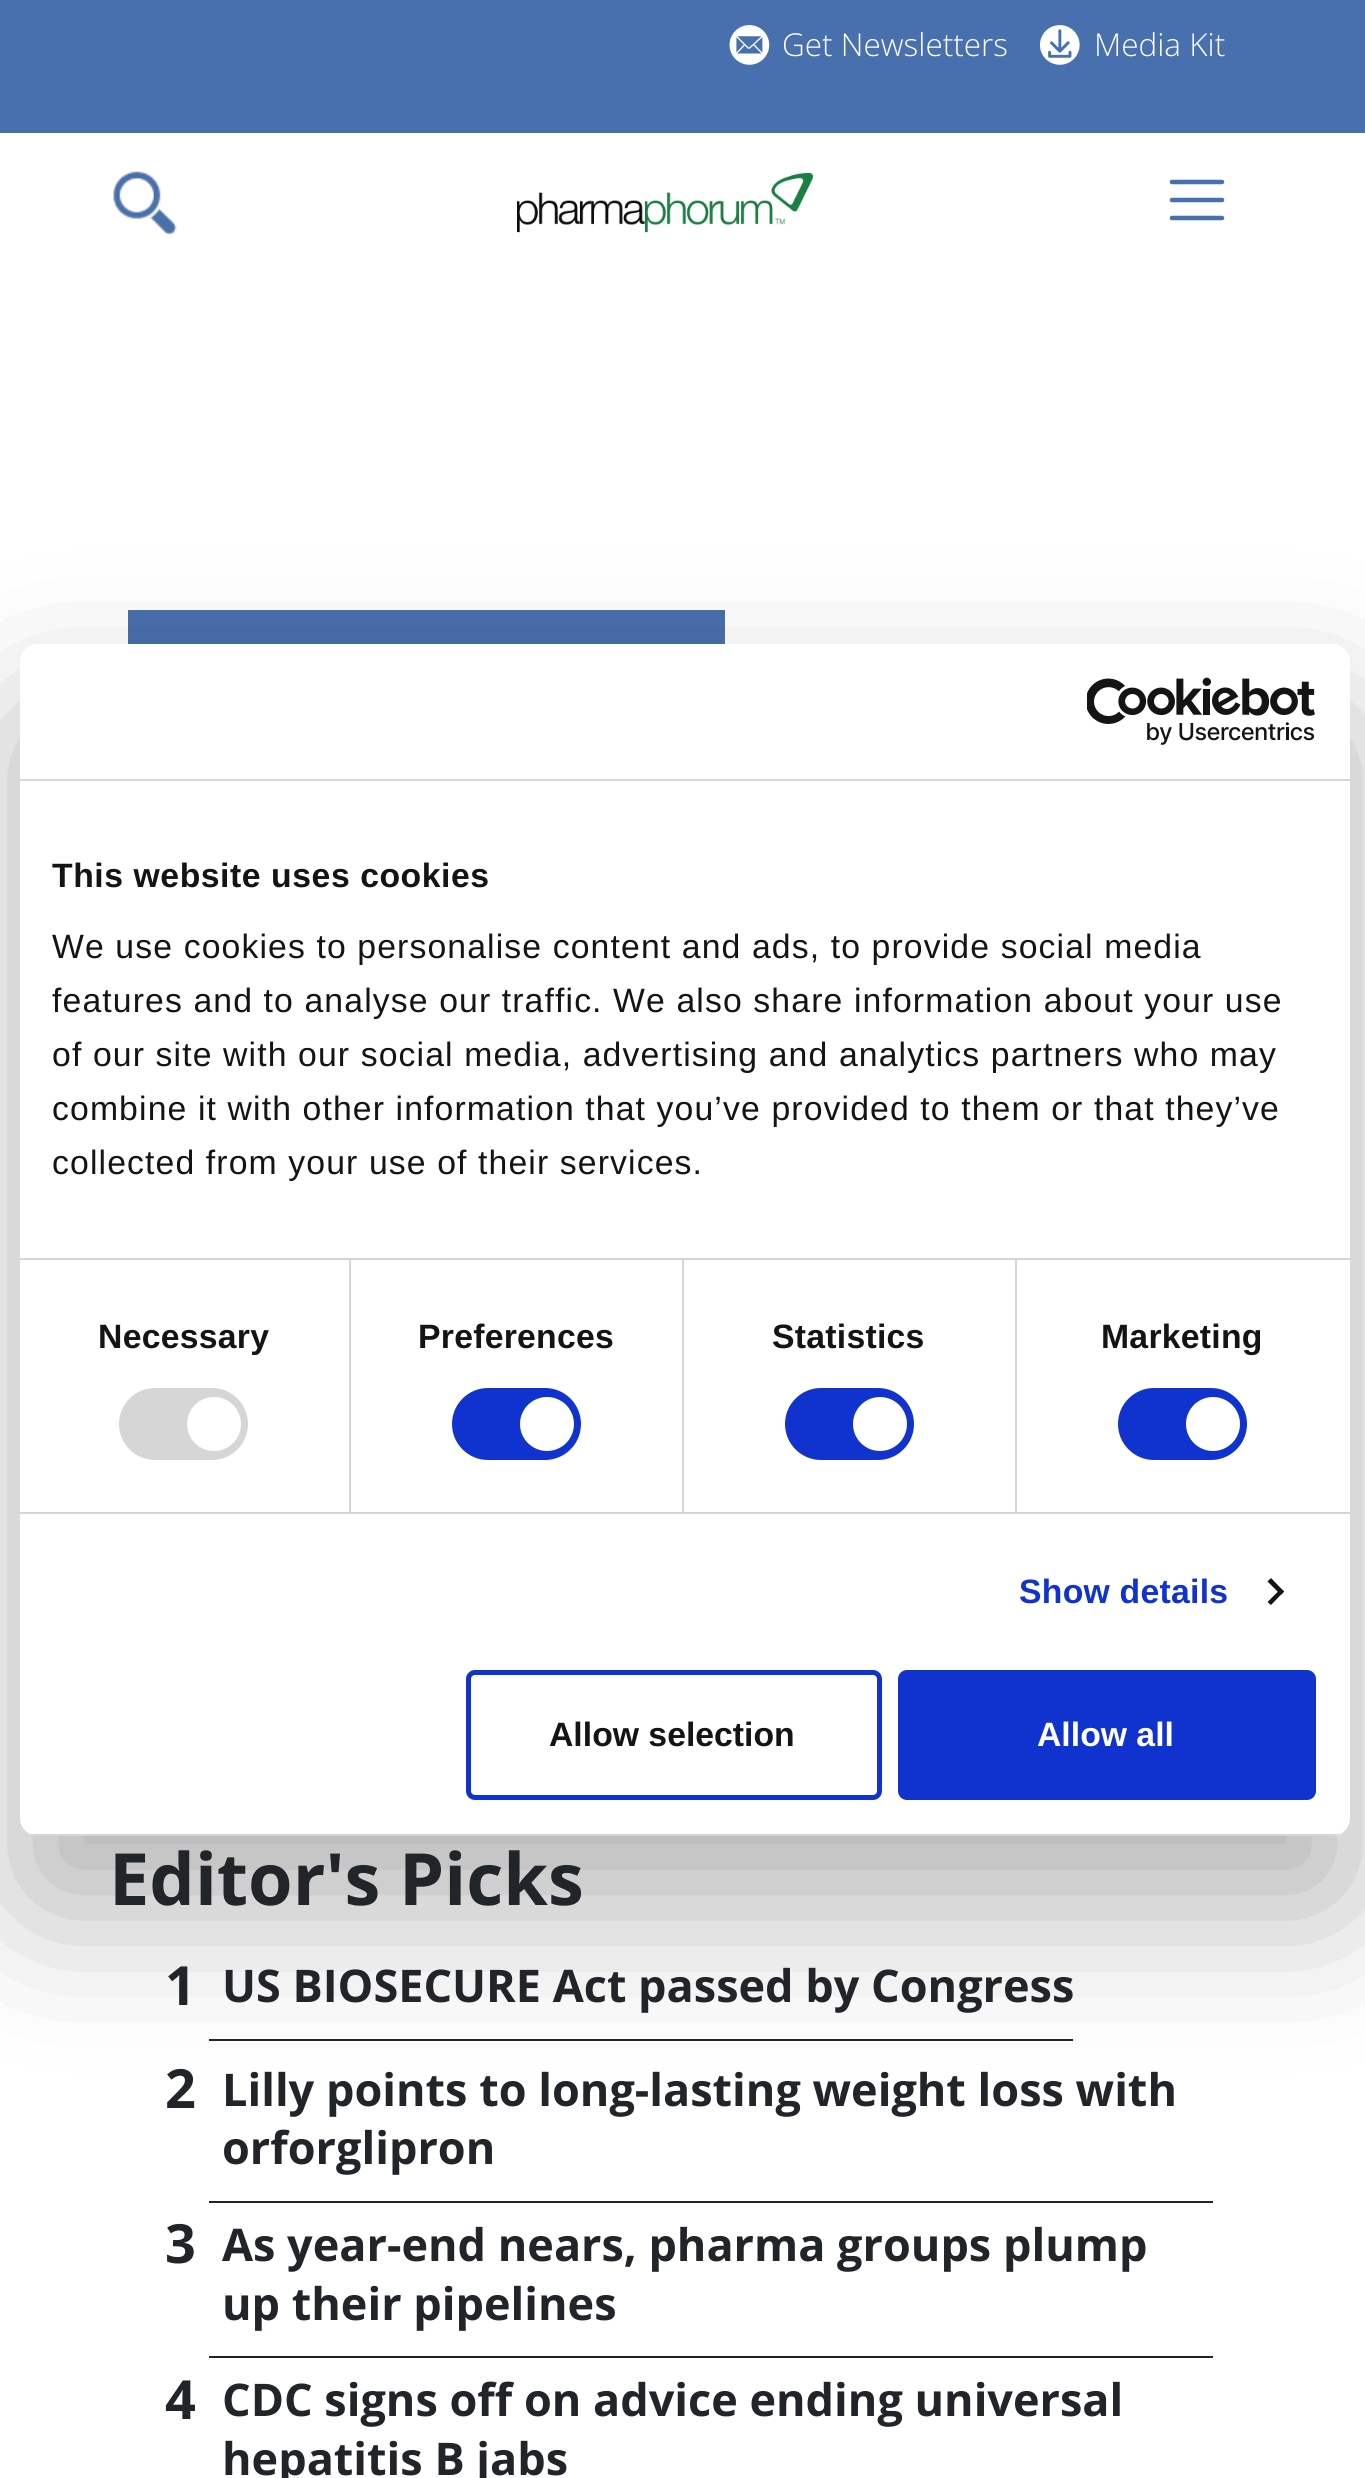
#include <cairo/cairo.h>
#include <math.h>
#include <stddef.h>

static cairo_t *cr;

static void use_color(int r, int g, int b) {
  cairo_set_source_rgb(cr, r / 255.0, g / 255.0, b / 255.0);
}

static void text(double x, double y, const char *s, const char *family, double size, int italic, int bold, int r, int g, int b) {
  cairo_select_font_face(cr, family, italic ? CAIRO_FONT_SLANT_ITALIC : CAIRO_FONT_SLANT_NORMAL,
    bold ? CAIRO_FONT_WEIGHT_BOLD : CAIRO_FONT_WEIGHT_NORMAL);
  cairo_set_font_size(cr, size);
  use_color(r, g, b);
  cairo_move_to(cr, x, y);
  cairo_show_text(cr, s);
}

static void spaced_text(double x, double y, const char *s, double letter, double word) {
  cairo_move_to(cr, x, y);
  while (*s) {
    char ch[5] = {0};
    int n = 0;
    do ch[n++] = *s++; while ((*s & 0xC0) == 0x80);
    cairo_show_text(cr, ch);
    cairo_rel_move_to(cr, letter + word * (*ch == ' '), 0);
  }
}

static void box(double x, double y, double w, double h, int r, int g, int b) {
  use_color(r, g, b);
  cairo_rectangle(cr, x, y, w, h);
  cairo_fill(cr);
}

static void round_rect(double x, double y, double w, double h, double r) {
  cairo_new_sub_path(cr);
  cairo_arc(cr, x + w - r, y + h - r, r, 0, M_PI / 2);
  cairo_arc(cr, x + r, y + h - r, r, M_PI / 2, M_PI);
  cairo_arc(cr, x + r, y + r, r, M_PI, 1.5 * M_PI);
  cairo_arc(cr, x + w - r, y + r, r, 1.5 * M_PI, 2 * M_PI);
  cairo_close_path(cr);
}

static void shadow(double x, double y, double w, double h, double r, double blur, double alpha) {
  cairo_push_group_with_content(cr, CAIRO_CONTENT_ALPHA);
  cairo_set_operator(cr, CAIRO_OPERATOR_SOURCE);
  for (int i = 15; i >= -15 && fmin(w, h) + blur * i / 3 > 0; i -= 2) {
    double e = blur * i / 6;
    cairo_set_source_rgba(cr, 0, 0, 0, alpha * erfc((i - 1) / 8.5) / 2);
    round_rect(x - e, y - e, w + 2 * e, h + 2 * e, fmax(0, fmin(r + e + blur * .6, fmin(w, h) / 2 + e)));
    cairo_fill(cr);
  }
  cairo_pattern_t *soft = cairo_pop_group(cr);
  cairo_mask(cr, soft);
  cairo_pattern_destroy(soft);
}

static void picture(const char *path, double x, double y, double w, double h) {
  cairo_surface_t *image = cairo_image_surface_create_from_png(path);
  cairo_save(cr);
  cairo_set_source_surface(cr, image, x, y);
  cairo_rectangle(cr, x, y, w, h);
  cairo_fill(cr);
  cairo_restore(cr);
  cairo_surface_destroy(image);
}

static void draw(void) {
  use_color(255, 255, 255);
  cairo_paint(cr);
  box(0, 0, 1365, 133, 72, 111, 174);
  picture("img_01.png", 729, 25, 41, 40);
  picture("img_02.png", 1040, 25, 40, 40);
  picture("img_03.png", 113, 171, 64, 64);
  picture("img_04.png", 517, 172, 296, 61);
  cairo_new_path(cr);
  cairo_move_to(cr, 1172, 182);
  cairo_line_to(cr, 1222, 182);
  cairo_move_to(cr, 1172, 200);
  cairo_line_to(cr, 1222, 200);
  cairo_move_to(cr, 1172, 218);
  cairo_line_to(cr, 1222, 218);
  cairo_set_line_width(cr, 4.5);
  cairo_set_line_cap(cr, CAIRO_LINE_CAP_ROUND);
  cairo_stroke(cr);
  box(128, 610, 597, 34, 72, 111, 174);
  box(209, 2039, 864, 2, 33, 37, 41);
  box(209, 2201, 1004, 2, 33, 37, 41);
  box(209, 2356, 1004, 2, 33, 37, 41);
  use_color(0, 0, 0);
  shadow(20, 716, 1330, 1192, 18, 76.5, 0.3);
  use_color(255, 255, 255);
  round_rect(20, 644, 1330, 1192, 18);
  cairo_fill(cr);
  box(20, 779, 1330, 2, 214, 214, 214);
  picture("img_05.png", 1087, 677, 228, 68);
  box(20, 1258, 1330, 2, 214, 214, 214);
  box(20, 1512, 1330, 2, 214, 214, 214);
  box(349, 1260, 2, 252, 214, 214, 214);
  round_rect(119, 1388, 129, 72, 36);
  cairo_fill(cr);
  use_color(255, 255, 255);
  cairo_arc(cr, 214, 1424, 27, 0, 2 * M_PI);
  cairo_fill(cr);
  box(682, 1260, 2, 252, 214, 214, 214);
  use_color(16, 50, 207);
  round_rect(452, 1388, 129, 72, 36);
  cairo_fill(cr);
  use_color(255, 255, 255);
  cairo_arc(cr, 547, 1424, 27, 0, 2 * M_PI);
  cairo_fill(cr);
  box(1015, 1260, 2, 252, 214, 214, 214);
  use_color(16, 50, 207);
  round_rect(785, 1388, 129, 72, 36);
  cairo_fill(cr);
  use_color(255, 255, 255);
  cairo_arc(cr, 880, 1424, 27, 0, 2 * M_PI);
  cairo_fill(cr);
  use_color(16, 50, 207);
  round_rect(1118, 1388, 129, 72, 36);
  cairo_fill(cr);
  use_color(255, 255, 255);
  cairo_arc(cr, 1213, 1424, 27, 0, 2 * M_PI);
  cairo_fill(cr);
  use_color(20, 20, 20);
  cairo_new_path(cr);
  cairo_move_to(cr, 1271, 1578);
  cairo_line_to(cr, 1284, 1591.5);
  cairo_line_to(cr, 1281, 1595);
  cairo_line_to(cr, 1267.5, 1581.5);
  cairo_close_path(cr);
  cairo_fill(cr);
  cairo_new_path(cr);
  cairo_move_to(cr, 1281, 1588.5);
  cairo_line_to(cr, 1284, 1591.5);
  cairo_line_to(cr, 1271, 1605);
  cairo_line_to(cr, 1267.5, 1602);
  cairo_close_path(cr);
  cairo_fill(cr);
  cairo_save(cr);
  round_rect(20, 644, 1330, 1192, 18);
  cairo_clip(cr);
  box(30, 1834, 1310, 2, 214, 214, 214);
  cairo_restore(cr);
  round_rect(468.5, 1672.5, 411, 125, 6.5);
  use_color(16, 50, 207);
  cairo_set_line_width(cr, 5);
  cairo_set_line_cap(cr, CAIRO_LINE_CAP_BUTT);
  cairo_stroke(cr);
  round_rect(900.5, 1672.5, 413, 125, 6.5);
  cairo_fill_preserve(cr);
  cairo_stroke(cr);
  text(782, 56, "Get Newsletters", "Open Sans Light", 31.5, 0, 0, 255, 255, 255);
  text(1094, 56, "Media Kit", "Open Sans Light", 31.5, 0, 0, 255, 255, 255);
  text(109, 1905, "Editor's Picks", "Open Sans", 72, 0, 1, 33, 37, 41);
  text(165, 2005, "1", "Open Sans", 54, 0, 1, 33, 37, 41);
  text(222, 2002, "US BIOSECURE Act passed by Congress", "Open Sans", 45, 0, 1, 33, 37, 41);
  text(165, 2108, "2", "Open Sans", 54, 0, 1, 33, 37, 41);
  text(222, 2106, "Lilly points to long-lasting weight loss with", "Open Sans", 45, 0, 1, 33, 37, 41);
  text(222, 2164, "orforglipron", "Open Sans", 45, 0, 1, 33, 37, 41);
  text(165, 2263, "3", "Open Sans", 54, 0, 1, 33, 37, 41);
  text(222, 2261, "As year-end nears, pharma groups plump", "Open Sans", 45, 0, 1, 33, 37, 41);
  text(222, 2320, "up their pipelines", "Open Sans", 45, 0, 1, 33, 37, 41);
  text(165, 2419, "4", "Open Sans", 54, 0, 1, 33, 37, 41);
  text(222, 2416, "CDC signs off on advice ending universal", "Open Sans", 45, 0, 1, 33, 37, 41);
  text(222, 2475, "hepatitis B jabs", "Open Sans", 45, 0, 1, 33, 37, 41);
  cairo_select_font_face(cr, "Liberation Sans", CAIRO_FONT_SLANT_NORMAL, CAIRO_FONT_WEIGHT_BOLD);
  cairo_set_font_size(cr, 33.75);
  use_color(20, 20, 20);
  spaced_text(52, 887, "This website uses cookies", 0.55, 0);
  cairo_select_font_face(cr, "Liberation Sans", CAIRO_FONT_SLANT_NORMAL, CAIRO_FONT_WEIGHT_NORMAL);
  spaced_text(52, 958, "We use cookies to personalise content and ads, to provide social media", 1.12, 0);
  spaced_text(52, 1012, "features and to analyse our traffic. We also share information about your use", 1.12, 0);
  spaced_text(52, 1066, "of our site with our social media, advertising and analytics partners who may", 1.12, 0);
  spaced_text(52, 1120, "combine it with other information that you’ve provided to them or that they’ve", 1.12, 0);
  spaced_text(52, 1174, "collected from your use of their services.", 1.12, 0);
  cairo_select_font_face(cr, "Liberation Sans", CAIRO_FONT_SLANT_NORMAL, CAIRO_FONT_WEIGHT_BOLD);
  spaced_text(98, 1348, "Necessary", 0.25, 0);
  spaced_text(418, 1348, "Preferences", 0.25, 0);
  spaced_text(772, 1348, "Statistics", 0.25, 0);
  spaced_text(1101, 1348, "Marketing", 0.25, 0);
  use_color(16, 50, 207);
  spaced_text(1019, 1603, "Show details", 0.25, 0);
  text(549, 1746, "Allow selection", "Liberation Sans", 33.75, 0, 1, 20, 20, 20);
  text(1037, 1746, "Allow all", "Liberation Sans", 33.75, 0, 1, 255, 255, 255);
}

int main(void) {
  cairo_surface_t *surface = cairo_image_surface_create(CAIRO_FORMAT_RGB24, 1365, 2478);
  cr = cairo_create(surface);
  cairo_font_options_t *options = cairo_font_options_create();
  cairo_font_options_set_hint_metrics(options, CAIRO_HINT_METRICS_OFF);
  cairo_font_options_set_hint_style(options, CAIRO_HINT_STYLE_NONE);
  cairo_set_font_options(cr, options);
  cairo_set_miter_limit(cr, 4);
  draw();
  cairo_surface_write_to_png(surface, "out.png");
  cairo_font_options_destroy(options);
  cairo_destroy(cr);
  cairo_surface_destroy(surface);
  return 0;
}
